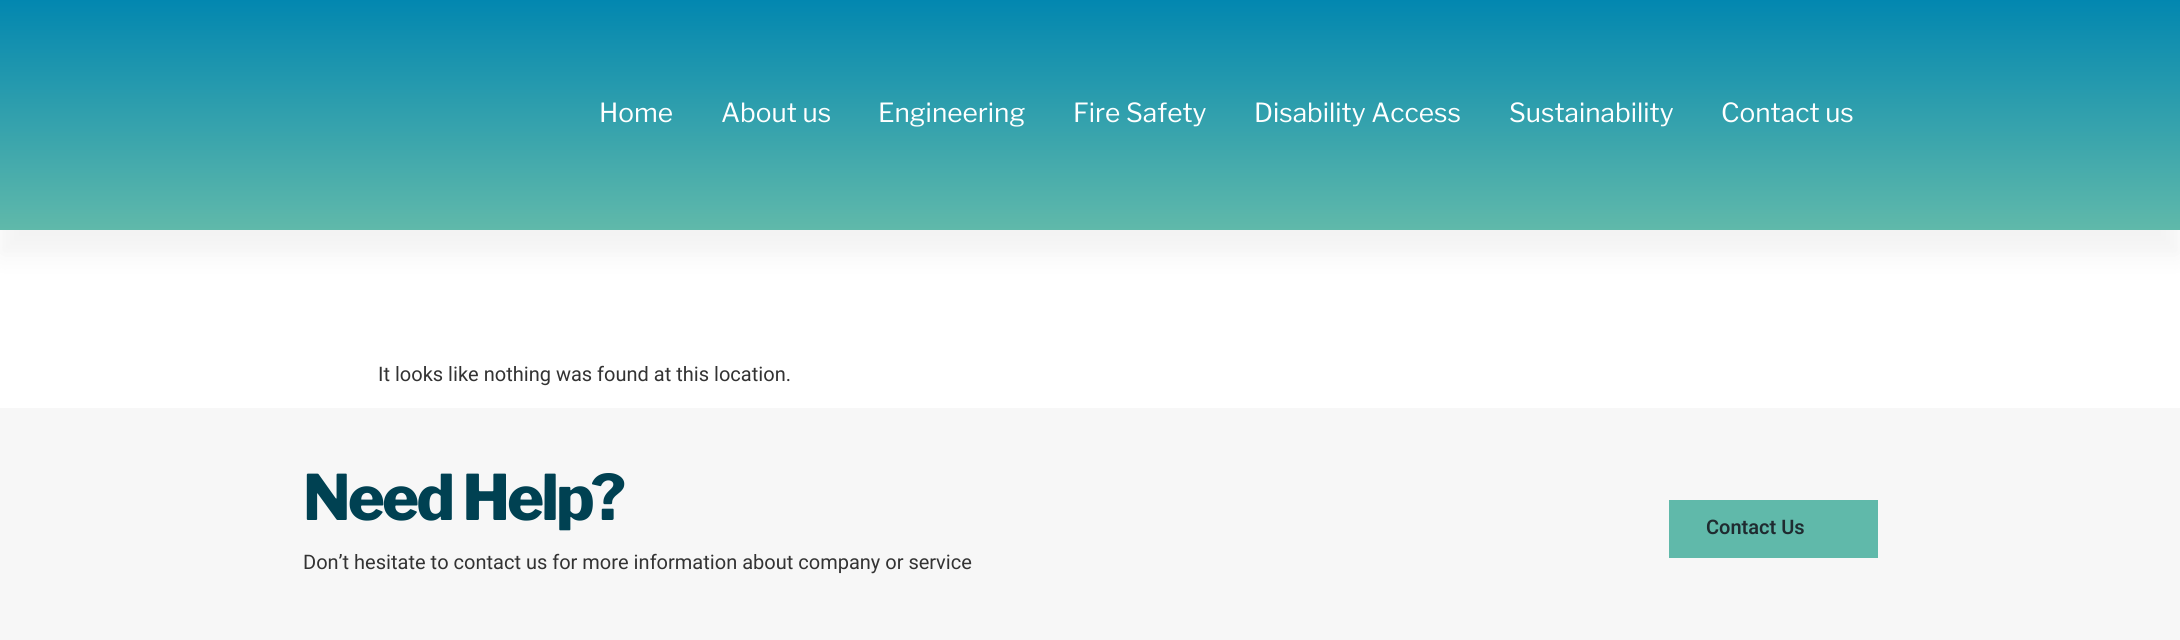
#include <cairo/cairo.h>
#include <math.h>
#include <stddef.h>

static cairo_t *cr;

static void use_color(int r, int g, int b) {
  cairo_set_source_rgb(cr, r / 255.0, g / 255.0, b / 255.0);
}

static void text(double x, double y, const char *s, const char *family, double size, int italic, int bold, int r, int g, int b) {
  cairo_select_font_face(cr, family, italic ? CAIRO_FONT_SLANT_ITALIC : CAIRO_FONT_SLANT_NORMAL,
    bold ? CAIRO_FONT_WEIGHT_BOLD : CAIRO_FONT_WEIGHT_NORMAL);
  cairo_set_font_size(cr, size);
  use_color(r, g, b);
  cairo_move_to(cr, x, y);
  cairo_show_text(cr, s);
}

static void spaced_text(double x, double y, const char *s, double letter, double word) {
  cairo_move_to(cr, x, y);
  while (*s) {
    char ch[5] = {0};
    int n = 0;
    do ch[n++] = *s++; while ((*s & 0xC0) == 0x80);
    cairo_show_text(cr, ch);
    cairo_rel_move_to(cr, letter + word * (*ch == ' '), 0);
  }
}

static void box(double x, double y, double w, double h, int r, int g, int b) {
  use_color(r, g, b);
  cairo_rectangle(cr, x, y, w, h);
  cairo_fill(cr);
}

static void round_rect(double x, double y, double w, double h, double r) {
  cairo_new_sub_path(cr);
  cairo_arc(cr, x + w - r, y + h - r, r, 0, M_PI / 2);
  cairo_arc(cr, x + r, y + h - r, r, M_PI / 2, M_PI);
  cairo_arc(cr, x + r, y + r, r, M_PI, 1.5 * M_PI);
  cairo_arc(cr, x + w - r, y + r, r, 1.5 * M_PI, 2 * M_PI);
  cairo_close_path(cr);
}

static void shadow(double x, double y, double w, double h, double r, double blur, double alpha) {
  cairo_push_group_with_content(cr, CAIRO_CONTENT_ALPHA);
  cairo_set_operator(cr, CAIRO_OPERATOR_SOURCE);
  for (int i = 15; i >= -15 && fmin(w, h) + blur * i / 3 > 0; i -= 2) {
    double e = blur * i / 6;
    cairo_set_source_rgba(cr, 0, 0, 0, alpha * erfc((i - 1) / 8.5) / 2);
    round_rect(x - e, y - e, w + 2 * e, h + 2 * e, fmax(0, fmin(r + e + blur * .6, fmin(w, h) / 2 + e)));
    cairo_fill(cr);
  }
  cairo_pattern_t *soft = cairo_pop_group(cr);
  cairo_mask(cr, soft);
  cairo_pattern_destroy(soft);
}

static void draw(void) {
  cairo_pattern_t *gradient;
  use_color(255, 255, 255);
  cairo_paint(cr);
  use_color(0, 0, 0);
  shadow(0, 20, 2180, 235, 0, 12.5, 0.05);
  gradient = cairo_pattern_create_linear(1090, -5, 1090, 230);
  cairo_pattern_add_color_stop_rgba(gradient, 0, 0, 0.525, 0.69, 1);
  cairo_pattern_add_color_stop_rgba(gradient, 1, 0.376, 0.725, 0.667, 1);
  cairo_set_source(cr, gradient);
  cairo_pattern_destroy(gradient);
  cairo_rectangle(cr, 0, 0, 2180, 230);
  cairo_fill(cr);
  box(0, 408, 2180, 232, 247, 247, 247);
  box(1669, 500, 209, 58, 96, 185, 170);
  text(599, 122, "Home", "Libre Franklin", 26.25, 0, 0, 255, 255, 255);
  text(721, 122, "About us", "Libre Franklin", 26.25, 0, 0, 255, 255, 255);
  text(878, 122, "Engineering", "Libre Franklin", 26.25, 0, 0, 255, 255, 255);
  text(1073, 122, "Fire Safety", "Libre Franklin", 26.25, 0, 0, 255, 255, 255);
  text(1254, 122, "Disability Access", "Libre Franklin", 26.25, 0, 0, 255, 255, 255);
  text(1509, 122, "Sustainability", "Libre Franklin", 26.25, 0, 0, 255, 255, 255);
  text(1721, 122, "Contact us", "Libre Franklin", 26.25, 0, 0, 255, 255, 255);
  text(378, 381, "It looks like nothing was found at this location.", "Heebo", 20, 0, 0, 51, 51, 51);
  cairo_select_font_face(cr, "Libre Franklin ExtraBold", CAIRO_FONT_SLANT_NORMAL, CAIRO_FONT_WEIGHT_NORMAL);
  cairo_set_font_size(cr, 62.5);
  use_color(0, 65, 82);
  spaced_text(303, 520, "Need Help?", -2.5, 0);
  text(303, 569, "Don’t hesitate to contact us for more information about company or service", "Heebo", 20, 0, 0, 51, 51, 51);
  text(1706, 534, "Contact Us", "Heebo SemiBold", 20, 0, 0, 31, 43, 48);
}

int main(void) {
  cairo_surface_t *surface = cairo_image_surface_create(CAIRO_FORMAT_RGB24, 2180, 640);
  cr = cairo_create(surface);
  cairo_font_options_t *options = cairo_font_options_create();
  cairo_font_options_set_hint_metrics(options, CAIRO_HINT_METRICS_OFF);
  cairo_font_options_set_hint_style(options, CAIRO_HINT_STYLE_NONE);
  cairo_set_font_options(cr, options);
  cairo_set_miter_limit(cr, 4);
  draw();
  cairo_surface_write_to_png(surface, "out.png");
  cairo_font_options_destroy(options);
  cairo_destroy(cr);
  cairo_surface_destroy(surface);
  return 0;
}
